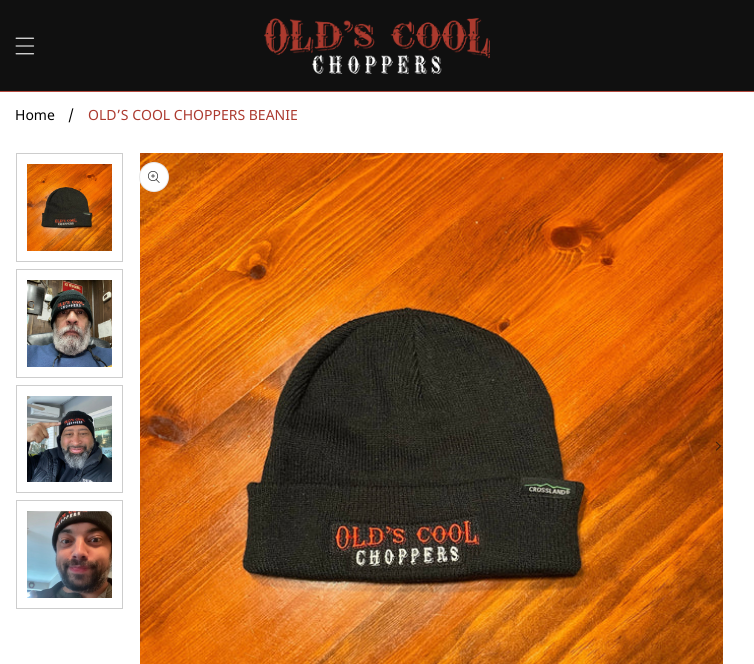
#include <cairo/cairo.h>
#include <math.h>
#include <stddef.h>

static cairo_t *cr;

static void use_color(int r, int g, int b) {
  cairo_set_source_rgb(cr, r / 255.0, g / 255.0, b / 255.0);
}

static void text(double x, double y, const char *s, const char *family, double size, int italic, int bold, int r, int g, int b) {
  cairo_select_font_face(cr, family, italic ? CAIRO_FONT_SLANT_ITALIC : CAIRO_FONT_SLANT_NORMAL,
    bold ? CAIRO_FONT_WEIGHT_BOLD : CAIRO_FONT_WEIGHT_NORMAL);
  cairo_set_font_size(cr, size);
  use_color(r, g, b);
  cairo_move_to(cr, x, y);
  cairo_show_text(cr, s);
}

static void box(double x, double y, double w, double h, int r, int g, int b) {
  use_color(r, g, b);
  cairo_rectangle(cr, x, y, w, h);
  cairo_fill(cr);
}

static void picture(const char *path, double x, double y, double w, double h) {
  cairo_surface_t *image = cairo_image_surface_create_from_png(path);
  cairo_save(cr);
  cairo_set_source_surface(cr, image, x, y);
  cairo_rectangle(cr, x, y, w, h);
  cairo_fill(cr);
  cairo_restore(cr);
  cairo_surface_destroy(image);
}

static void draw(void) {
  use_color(255, 255, 255);
  cairo_paint(cr);
  box(0, 91, 754, 1, 179, 74, 64);
  box(0, 0, 754, 91, 16, 16, 16);
  picture("img_01.png", 15, 37, 20, 18);
  picture("img_02.png", 264, 18, 226, 56);
  cairo_rectangle(cr, 16.5, 153.5, 106, 108);
  use_color(205, 205, 205);
  cairo_set_line_width(cr, 1);
  cairo_stroke(cr);
  picture("img_03.png", 27, 164, 85, 87);
  cairo_rectangle(cr, 16.5, 269.5, 106, 108);
  cairo_stroke(cr);
  picture("img_04.png", 27, 280, 85, 87);
  cairo_rectangle(cr, 16.5, 385.5, 106, 107);
  cairo_stroke(cr);
  picture("img_05.png", 27, 396, 85, 86);
  cairo_rectangle(cr, 16.5, 500.5, 106, 108);
  cairo_stroke(cr);
  picture("img_06.png", 27, 511, 85, 87);
  picture("img_07.png", 140, 153, 583, 511);
  use_color(255, 255, 255);
  cairo_arc(cr, 154, 177, 15, 0, 2 * M_PI);
  cairo_fill(cr);
  cairo_arc(cr, 154, 177, 14.5, 0, 2 * M_PI);
  cairo_set_source_rgba(cr, 0.071, 0.071, 0.071, 0.1);
  cairo_stroke(cr);
  picture("img_08.png", 148, 171, 12, 12);
  picture("img_09.png", 715, 441, 6, 10);
  text(15, 120, "Home", "Noto Sans", 14, 0, 0, 0, 0, 0);
  text(68, 120, "/", "Noto Sans", 14, 0, 0, 0, 0, 0);
  text(88, 120, "OLD’S COOL CHOPPERS BEANIE", "Noto Sans", 14, 0, 0, 172, 58, 47);
}

int main(void) {
  cairo_surface_t *surface = cairo_image_surface_create(CAIRO_FORMAT_RGB24, 754, 664);
  cr = cairo_create(surface);
  cairo_font_options_t *options = cairo_font_options_create();
  cairo_font_options_set_hint_metrics(options, CAIRO_HINT_METRICS_OFF);
  cairo_font_options_set_hint_style(options, CAIRO_HINT_STYLE_NONE);
  cairo_set_font_options(cr, options);
  cairo_set_miter_limit(cr, 4);
  draw();
  cairo_surface_write_to_png(surface, "out.png");
  cairo_font_options_destroy(options);
  cairo_destroy(cr);
  cairo_surface_destroy(surface);
  return 0;
}
